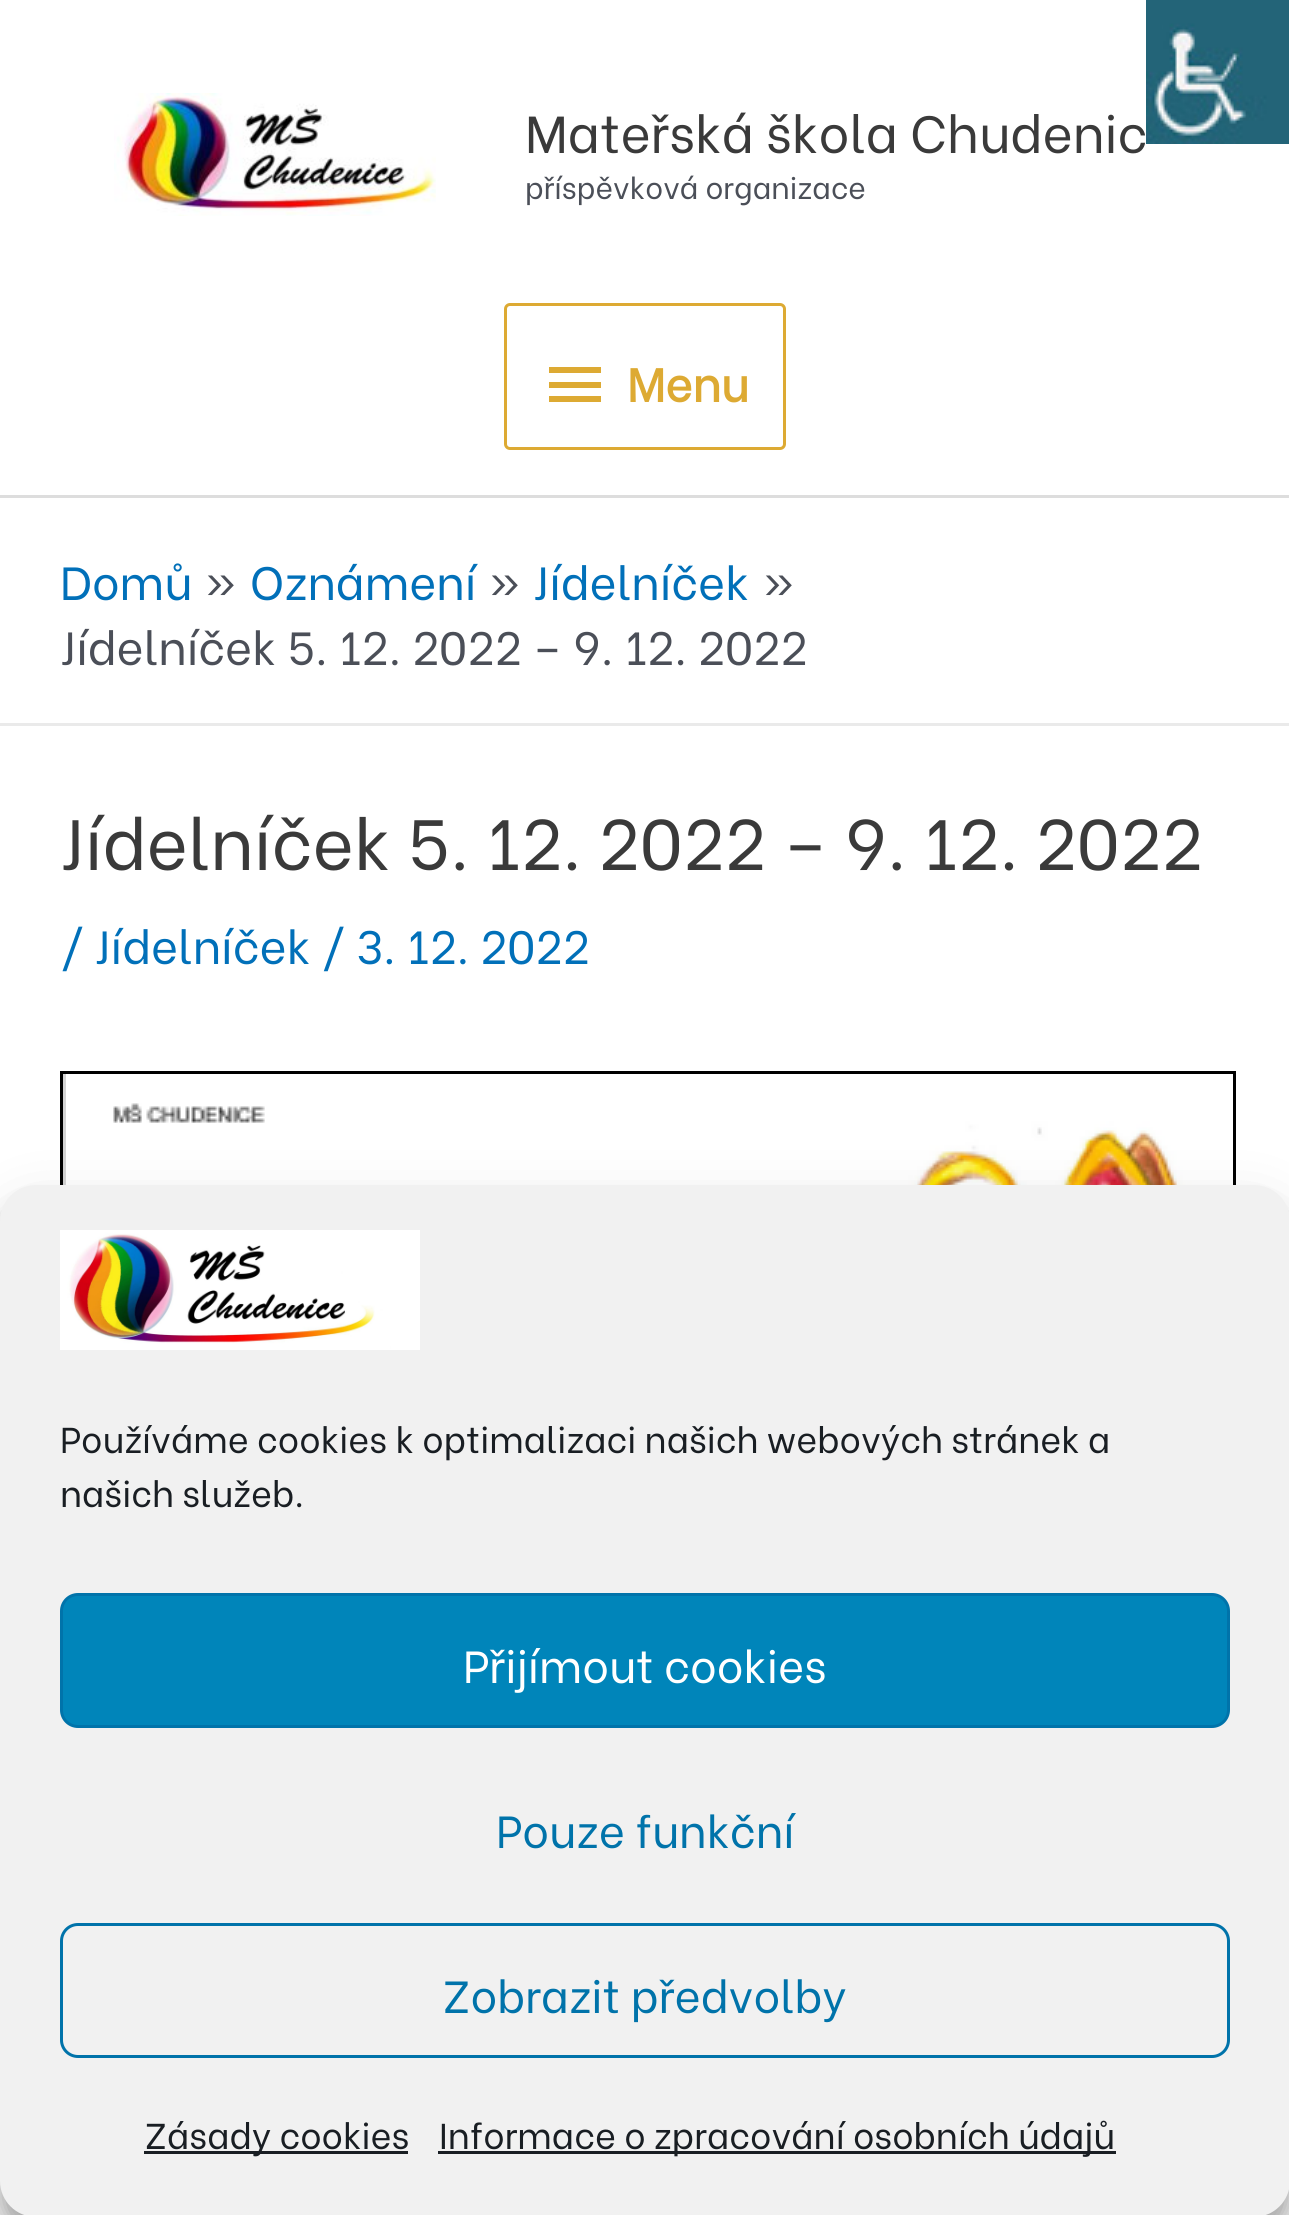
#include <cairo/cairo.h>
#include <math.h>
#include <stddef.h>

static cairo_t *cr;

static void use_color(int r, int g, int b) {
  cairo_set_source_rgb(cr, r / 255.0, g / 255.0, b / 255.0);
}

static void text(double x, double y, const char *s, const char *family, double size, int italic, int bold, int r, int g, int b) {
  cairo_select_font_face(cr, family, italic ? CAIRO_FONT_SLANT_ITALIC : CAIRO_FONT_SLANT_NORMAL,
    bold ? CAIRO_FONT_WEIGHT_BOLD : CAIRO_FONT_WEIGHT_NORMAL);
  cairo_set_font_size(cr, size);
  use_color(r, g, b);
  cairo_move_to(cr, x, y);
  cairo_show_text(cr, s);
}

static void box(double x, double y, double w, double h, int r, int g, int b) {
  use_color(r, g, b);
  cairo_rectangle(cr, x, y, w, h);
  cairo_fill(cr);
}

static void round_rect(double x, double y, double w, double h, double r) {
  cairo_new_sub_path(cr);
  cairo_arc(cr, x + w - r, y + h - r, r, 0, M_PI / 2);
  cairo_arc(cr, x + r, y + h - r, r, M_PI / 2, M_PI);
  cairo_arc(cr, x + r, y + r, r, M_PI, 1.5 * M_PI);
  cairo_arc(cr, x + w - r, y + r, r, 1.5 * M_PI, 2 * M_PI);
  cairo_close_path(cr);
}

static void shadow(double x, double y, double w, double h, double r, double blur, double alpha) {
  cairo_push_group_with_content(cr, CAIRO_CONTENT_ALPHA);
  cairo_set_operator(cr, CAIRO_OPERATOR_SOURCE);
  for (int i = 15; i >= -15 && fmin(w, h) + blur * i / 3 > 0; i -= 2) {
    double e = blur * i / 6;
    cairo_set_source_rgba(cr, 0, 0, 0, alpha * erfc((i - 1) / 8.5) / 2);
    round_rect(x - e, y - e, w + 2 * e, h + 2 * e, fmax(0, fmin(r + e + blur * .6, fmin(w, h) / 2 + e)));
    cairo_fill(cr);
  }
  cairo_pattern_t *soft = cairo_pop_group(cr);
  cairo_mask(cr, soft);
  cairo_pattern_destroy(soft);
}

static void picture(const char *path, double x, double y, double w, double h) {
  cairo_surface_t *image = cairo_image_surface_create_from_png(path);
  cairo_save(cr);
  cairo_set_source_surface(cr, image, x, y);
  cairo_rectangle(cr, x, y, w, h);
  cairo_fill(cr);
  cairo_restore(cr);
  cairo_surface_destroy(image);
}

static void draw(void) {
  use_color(255, 255, 255);
  cairo_paint(cr);
  picture("img_01.png", 1146, 0, 143, 144);
  box(0, 495, 1289, 3, 221, 221, 221);
  picture("img_02.png", 114, 93, 322, 123);
  round_rect(505.5, 304.5, 279, 144, 4.5);
  use_color(221, 170, 51);
  cairo_set_line_width(cr, 3);
  cairo_stroke(cr);
  cairo_new_path(cr);
  cairo_move_to(cr, 549, 367);
  cairo_line_to(cr, 601, 367);
  cairo_line_to(cr, 601, 373);
  cairo_line_to(cr, 549, 373);
  cairo_close_path(cr);
  cairo_move_to(cr, 549, 388);
  cairo_line_to(cr, 549, 382);
  cairo_line_to(cr, 601, 382);
  cairo_line_to(cr, 601, 388);
  cairo_close_path(cr);
  cairo_move_to(cr, 549, 402);
  cairo_line_to(cr, 549, 396);
  cairo_line_to(cr, 601, 396);
  cairo_line_to(cr, 601, 402);
  cairo_close_path(cr);
  cairo_fill(cr);
  box(0, 723, 1289, 3, 234, 234, 234);
  box(63, 1074, 3, 111, 211, 211, 211);
  cairo_rectangle(cr, 61.5, 1072.5, 1173, 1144);
  use_color(0, 0, 0);
  cairo_stroke(cr);
  picture("img_03.png", 98, 1103, 1100, 82);
  use_color(0, 0, 0);
  shadow(0, 1203, 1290, 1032, 36, 9, 0.23);
  shadow(0, 1215, 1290, 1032, 36, 30, 0.19);
  use_color(241, 241, 241);
  round_rect(0, 1185, 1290, 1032, 36);
  cairo_fill(cr);
  picture("img_04.png", 60, 1230, 360, 120);
  use_color(0, 133, 186);
  round_rect(61.5, 1594.5, 1167, 132, 16.5);
  cairo_fill_preserve(cr);
  use_color(0, 115, 170);
  cairo_stroke(cr);
  round_rect(61.5, 1924.5, 1167, 132, 16.5);
  cairo_stroke(cr);
  box(144, 2151, 264, 3, 25, 30, 35);
  box(438, 2151, 678, 3, 25, 30, 35);
  text(525, 153, "Mateřská škola Chudenic", "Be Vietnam", 52, 0, 0, 58, 58, 58);
  text(525, 199, "příspěvková organizace", "Be Vietnam", 30.1, 0, 0, 75, 79, 88);
  text(627, 402, "Menu", "Be Vietnam", 46.5, 0, 1, 221, 170, 51);
  text(60, 600, "Domů", "Be Vietnam", 46.5, 0, 0, 1, 112, 185);
  text(206, 600, "»", "Be Vietnam", 46.5, 0, 0, 75, 79, 88);
  text(250, 600, "Oznámení", "Be Vietnam", 46.5, 0, 0, 1, 112, 185);
  text(490, 600, "»", "Be Vietnam", 46.5, 0, 0, 75, 79, 88);
  text(533, 600, "Jídelníček", "Be Vietnam", 46.5, 0, 0, 1, 112, 185);
  text(764, 600, "»", "Be Vietnam", 46.5, 0, 0, 75, 79, 88);
  text(60, 665, "Jídelníček 5. 12. 2022 – 9. 12. 2022", "Be Vietnam", 46.5, 0, 0, 75, 79, 88);
  text(60, 870, "Jídelníček 5. 12. 2022 – 9. 12. 2022", "Be Vietnam", 71.1, 0, 0, 58, 58, 58);
  text(60, 964, "/ Jídelníček / 3. 12. 2022", "Be Vietnam", 46.5, 0, 0, 1, 112, 185);
  text(60, 1453, "Používáme cookies k optimalizaci našich webových stránek a", "Be Vietnam", 36, 0, 0, 25, 30, 35);
  text(60, 1507, "našich služeb.", "Be Vietnam", 36, 0, 0, 25, 30, 35);
  text(463, 1683, "Přijímout cookies", "Be Vietnam", 45, 0, 0, 255, 255, 255);
  text(496, 1848, "Pouze funkční", "Be Vietnam", 45, 0, 0, 0, 115, 170);
  text(443, 2013, "Zobrazit předvolby", "Be Vietnam", 45, 0, 0, 0, 115, 170);
  text(145, 2149, "Zásady cookies", "Be Vietnam", 36, 0, 0, 25, 30, 35);
  text(439, 2149, "Informace o zpracování osobních údajů", "Be Vietnam", 36, 0, 0, 25, 30, 35);
}

int main(void) {
  cairo_surface_t *surface = cairo_image_surface_create(CAIRO_FORMAT_RGB24, 1289, 2215);
  cr = cairo_create(surface);
  cairo_font_options_t *options = cairo_font_options_create();
  cairo_font_options_set_hint_metrics(options, CAIRO_HINT_METRICS_OFF);
  cairo_font_options_set_hint_style(options, CAIRO_HINT_STYLE_NONE);
  cairo_set_font_options(cr, options);
  cairo_set_miter_limit(cr, 4);
  draw();
  cairo_surface_write_to_png(surface, "out.png");
  cairo_font_options_destroy(options);
  cairo_destroy(cr);
  cairo_surface_destroy(surface);
  return 0;
}
